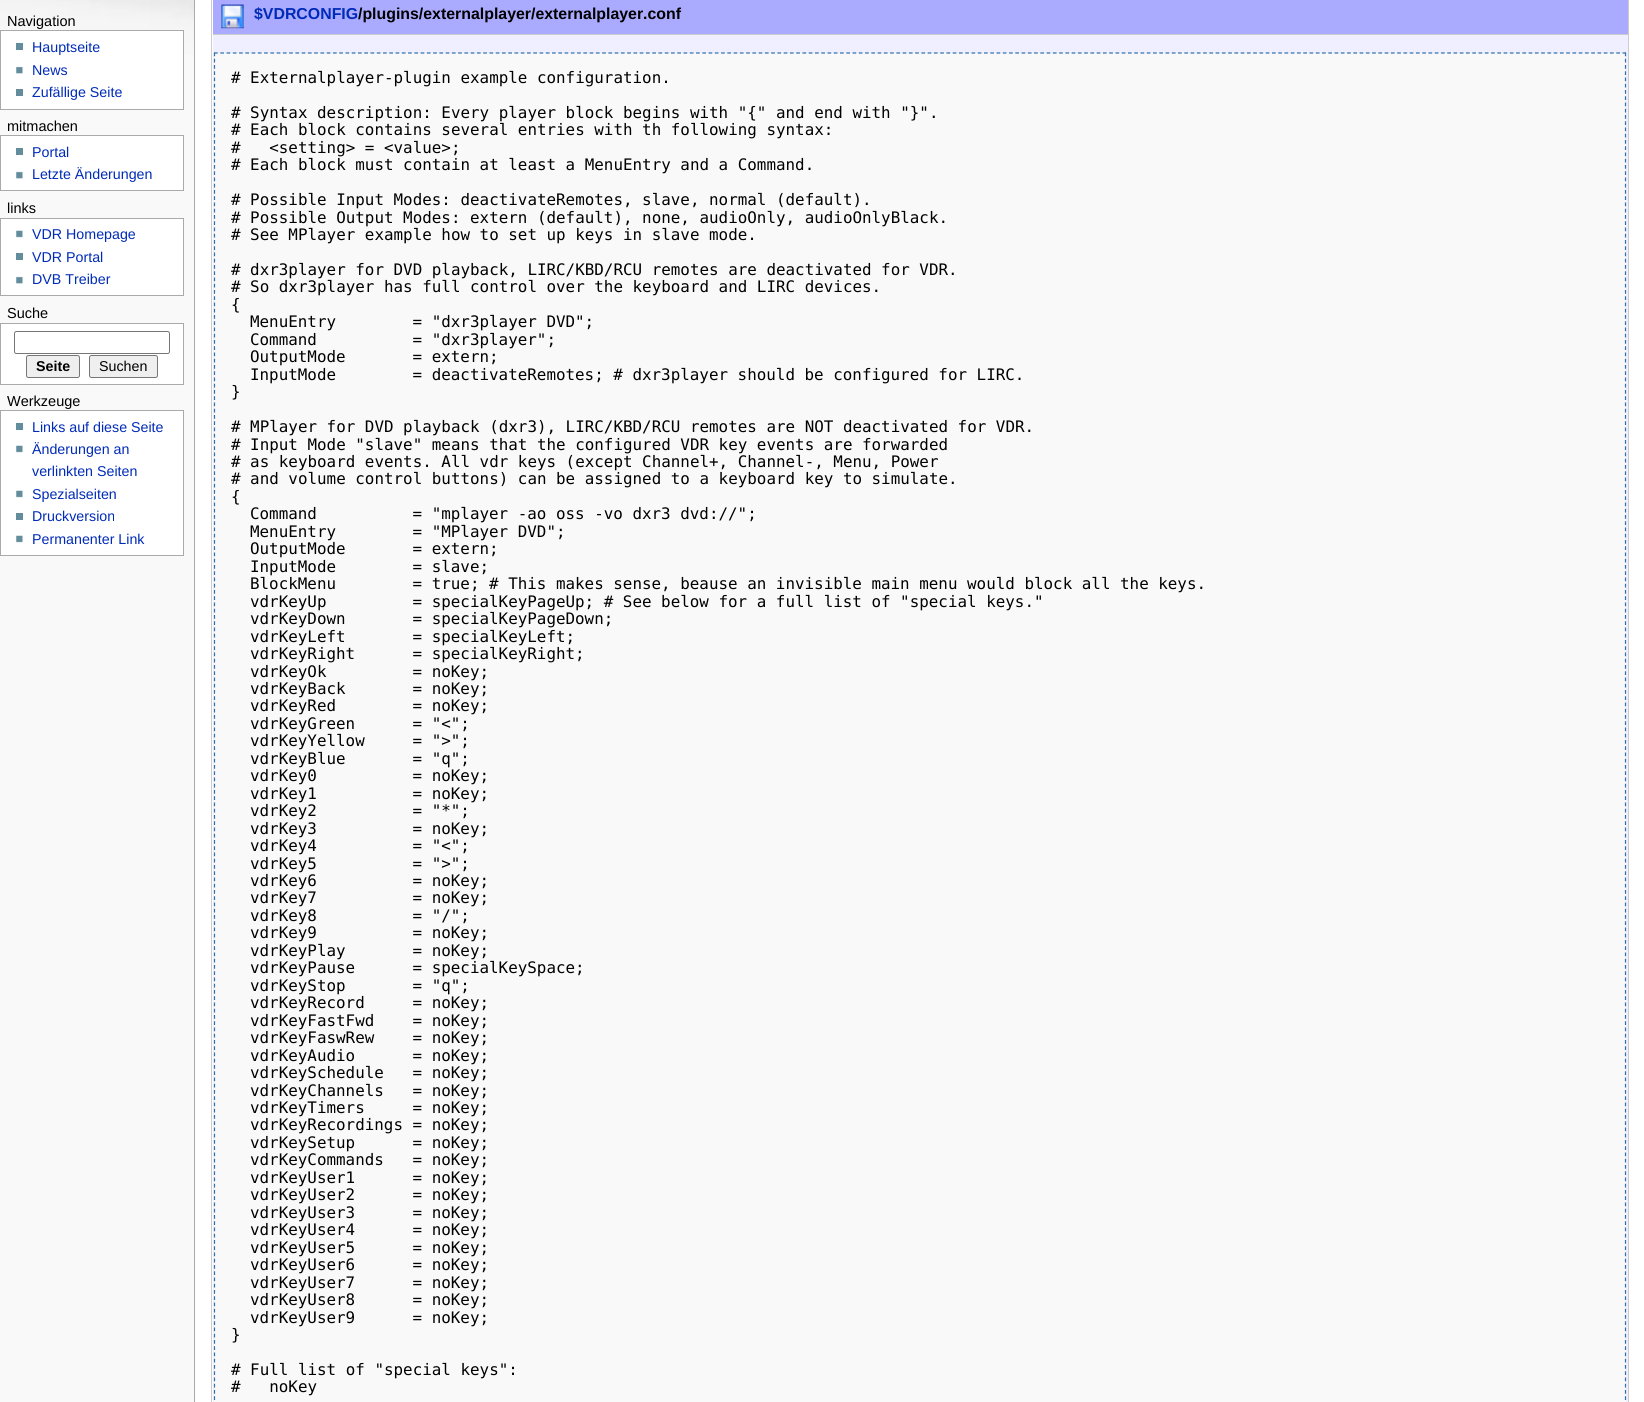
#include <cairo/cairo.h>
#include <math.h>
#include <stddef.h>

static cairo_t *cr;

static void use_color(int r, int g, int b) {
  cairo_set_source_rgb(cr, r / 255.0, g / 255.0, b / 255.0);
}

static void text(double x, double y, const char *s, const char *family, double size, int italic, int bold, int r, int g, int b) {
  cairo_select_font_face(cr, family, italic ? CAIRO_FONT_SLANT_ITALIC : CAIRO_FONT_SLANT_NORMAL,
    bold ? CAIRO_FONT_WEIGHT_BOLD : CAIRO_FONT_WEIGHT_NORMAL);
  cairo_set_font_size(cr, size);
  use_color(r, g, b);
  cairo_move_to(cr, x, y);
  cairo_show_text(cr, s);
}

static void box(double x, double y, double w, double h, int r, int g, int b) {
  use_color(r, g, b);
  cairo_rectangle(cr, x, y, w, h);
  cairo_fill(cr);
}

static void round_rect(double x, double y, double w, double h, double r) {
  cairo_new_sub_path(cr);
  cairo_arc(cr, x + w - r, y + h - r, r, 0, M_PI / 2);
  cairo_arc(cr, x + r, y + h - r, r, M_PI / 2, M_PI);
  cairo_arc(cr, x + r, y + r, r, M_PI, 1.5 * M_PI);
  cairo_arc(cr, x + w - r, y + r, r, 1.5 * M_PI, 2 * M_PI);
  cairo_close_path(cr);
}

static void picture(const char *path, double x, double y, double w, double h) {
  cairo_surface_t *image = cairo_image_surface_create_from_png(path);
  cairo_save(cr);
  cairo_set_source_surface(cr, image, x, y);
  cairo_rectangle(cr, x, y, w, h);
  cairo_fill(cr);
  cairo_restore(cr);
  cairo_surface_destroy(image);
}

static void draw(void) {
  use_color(249, 249, 249);
  cairo_paint(cr);
  picture("img_01.png", 0, 0, 194, 55);
  use_color(255, 255, 255);
  cairo_rectangle(cr, 0.5, 30.5, 183, 79);
  cairo_fill_preserve(cr);
  use_color(170, 170, 170);
  cairo_set_line_width(cr, 1);
  cairo_stroke(cr);
  box(16, 43, 7, 7, 99, 140, 156);
  picture("img_02.png", 16, 66, 7, 8);
  box(16, 89, 7, 7, 99, 140, 156);
  use_color(255, 255, 255);
  cairo_rectangle(cr, 0.5, 135.5, 183, 55);
  cairo_fill_preserve(cr);
  use_color(170, 170, 170);
  cairo_stroke(cr);
  box(16, 148, 7, 7, 99, 140, 156);
  picture("img_02.png", 16, 171, 7, 8);
  use_color(255, 255, 255);
  cairo_rectangle(cr, 0.5, 218.5, 183, 77);
  cairo_fill_preserve(cr);
  use_color(170, 170, 170);
  cairo_stroke(cr);
  picture("img_03.png", 16, 230, 7, 8);
  box(16, 253, 7, 7, 99, 140, 156);
  picture("img_02.png", 16, 276, 7, 8);
  use_color(255, 255, 255);
  cairo_rectangle(cr, 0.5, 323.5, 183, 61);
  cairo_fill_preserve(cr);
  use_color(170, 170, 170);
  cairo_stroke(cr);
  round_rect(14.5, 331.5, 155, 22, 2);
  use_color(118, 118, 118);
  cairo_stroke(cr);
  use_color(239, 239, 239);
  round_rect(26.5, 355.5, 53, 22, 2);
  cairo_fill_preserve(cr);
  use_color(118, 118, 118);
  cairo_stroke(cr);
  use_color(239, 239, 239);
  round_rect(89.5, 355.5, 68, 22, 2);
  cairo_fill_preserve(cr);
  use_color(118, 118, 118);
  cairo_stroke(cr);
  use_color(255, 255, 255);
  cairo_rectangle(cr, 0.5, 410.5, 183, 145);
  cairo_fill_preserve(cr);
  use_color(170, 170, 170);
  cairo_stroke(cr);
  box(16, 423, 7, 7, 99, 140, 156);
  picture("img_03.png", 16, 445, 7, 8);
  picture("img_03.png", 16, 490, 7, 8);
  box(16, 513, 7, 7, 99, 140, 156);
  picture("img_03.png", 16, 535, 7, 8);
  box(195, 0, 1449, 1402, 255, 255, 255);
  box(194, 0, 1, 1402, 170, 170, 170);
  cairo_rectangle(cr, 211.5, -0.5, 1417, 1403);
  use_color(204, 204, 204);
  cairo_stroke(cr);
  box(213, 0, 1415, 34, 170, 170, 255);
  box(213, 34, 1415, 1, 204, 204, 204);
  picture("img_04.png", 221, 4, 23, 25);
  box(213, 35, 1415, 1367, 239, 239, 255);
  box(214, 53, 1412, 1349, 249, 249, 249);
  cairo_new_path(cr);
  cairo_move_to(cr, 214, 53);
  cairo_line_to(cr, 1626, 53);
  use_color(47, 111, 171);
  cairo_set_line_width(cr, 1.2);
  cairo_set_dash(cr, (double[]){3.75, 2.51}, 2, 0);
  cairo_stroke(cr);
  cairo_new_path(cr);
  cairo_move_to(cr, 1625.5, 52.5);
  cairo_line_to(cr, 1625.5, 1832.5);
  cairo_set_dash(cr, (double[]){3.75, 2.5}, 2, 0);
  cairo_stroke(cr);
  cairo_new_path(cr);
  cairo_move_to(cr, 214.5, 52.5);
  cairo_line_to(cr, 214.5, 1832.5);
  cairo_stroke(cr);
  text(7, 26, "Navigation", "Liberation Sans", 14.5, 0, 0, 0, 0, 0);
  text(32, 52, "Hauptseite", "Liberation Sans", 14.25, 0, 0, 0, 43, 184);
  text(32, 75, "News", "Liberation Sans", 14.25, 0, 0, 0, 43, 184);
  text(32, 97, "Zufällige Seite", "Liberation Sans", 14.25, 0, 0, 0, 43, 184);
  text(7, 131, "mitmachen", "Liberation Sans", 14.5, 0, 0, 0, 0, 0);
  text(32, 157, "Portal", "Liberation Sans", 14.25, 0, 0, 0, 43, 184);
  text(32, 179, "Letzte Änderungen", "Liberation Sans", 14.25, 0, 0, 0, 43, 184);
  text(7, 213, "links", "Liberation Sans", 14.5, 0, 0, 0, 0, 0);
  text(32, 239, "VDR Homepage", "Liberation Sans", 14.25, 0, 0, 0, 43, 184);
  text(32, 262, "VDR Portal", "Liberation Sans", 14.25, 0, 0, 0, 43, 184);
  text(32, 284, "DVB Treiber", "Liberation Sans", 14.25, 0, 0, 0, 43, 184);
  text(7, 318, "Suche", "Liberation Sans", 14.5, 0, 0, 0, 0, 0);
  text(36, 371, "Seite", "Liberation Sans", 14.25, 0, 1, 0, 0, 0);
  text(99, 371, "Suchen", "Liberation Sans", 14.25, 0, 0, 0, 0, 0);
  text(7, 406, "Werkzeuge", "Liberation Sans", 14.5, 0, 0, 0, 0, 0);
  text(32, 432, "Links auf diese Seite", "Liberation Sans", 14.25, 0, 0, 0, 43, 184);
  text(32, 454, "Änderungen an", "Liberation Sans", 14.25, 0, 0, 0, 43, 184);
  text(32, 476, "verlinkten Seiten", "Liberation Sans", 14.25, 0, 0, 0, 43, 184);
  text(32, 499, "Spezialseiten", "Liberation Sans", 14.25, 0, 0, 0, 43, 184);
  text(32, 521, "Druckversion", "Liberation Sans", 14.25, 0, 0, 0, 43, 184);
  text(32, 544, "Permanenter Link", "Liberation Sans", 14.25, 0, 0, 0, 43, 184);
  text(254, 19, "$VDRCONFIG", "Liberation Sans", 15.88, 0, 1, 0, 43, 184);
  text(358, 19, "/plugins/externalplayer/externalplayer.conf", "Liberation Sans", 15.88, 0, 1, 0, 0, 0);
  text(231, 83, "# Externalplayer-plugin example configuration.", "DejaVu Sans Mono", 15.88, 0, 0, 0, 0, 0);
  text(231, 118, "# Syntax description: Every player block begins with \"{\" and end with \"}\".", "DejaVu Sans Mono", 15.88, 0, 0, 0, 0, 0);
  text(231, 135, "# Each block contains several entries with th following syntax:", "DejaVu Sans Mono", 15.88, 0, 0, 0, 0, 0);
  text(231, 153, "#   <setting> = <value>;", "DejaVu Sans Mono", 15.88, 0, 0, 0, 0, 0);
  text(231, 170, "# Each block must contain at least a MenuEntry and a Command.", "DejaVu Sans Mono", 15.88, 0, 0, 0, 0, 0);
  text(231, 205, "# Possible Input Modes: deactivateRemotes, slave, normal (default).", "DejaVu Sans Mono", 15.88, 0, 0, 0, 0, 0);
  text(231, 223, "# Possible Output Modes: extern (default), none, audioOnly, audioOnlyBlack.", "DejaVu Sans Mono", 15.88, 0, 0, 0, 0, 0);
  text(231, 240, "# See MPlayer example how to set up keys in slave mode.", "DejaVu Sans Mono", 15.88, 0, 0, 0, 0, 0);
  text(231, 275, "# dxr3player for DVD playback, LIRC/KBD/RCU remotes are deactivated for VDR.", "DejaVu Sans Mono", 15.88, 0, 0, 0, 0, 0);
  text(231, 292, "# So dxr3player has full control over the keyboard and LIRC devices.", "DejaVu Sans Mono", 15.88, 0, 0, 0, 0, 0);
  text(231, 310, "{", "DejaVu Sans Mono", 15.88, 0, 0, 0, 0, 0);
  text(250, 327, "MenuEntry        = \"dxr3player DVD\";", "DejaVu Sans Mono", 15.88, 0, 0, 0, 0, 0);
  text(250, 345, "Command          = \"dxr3player\";", "DejaVu Sans Mono", 15.88, 0, 0, 0, 0, 0);
  text(250, 362, "OutputMode       = extern;", "DejaVu Sans Mono", 15.88, 0, 0, 0, 0, 0);
  text(250, 380, "InputMode        = deactivateRemotes; # dxr3player should be configured for LIRC.", "DejaVu Sans Mono", 15.88, 0, 0, 0, 0, 0);
  text(231, 397, "}", "DejaVu Sans Mono", 15.88, 0, 0, 0, 0, 0);
  text(231, 432, "# MPlayer for DVD playback (dxr3), LIRC/KBD/RCU remotes are NOT deactivated for VDR.", "DejaVu Sans Mono", 15.88, 0, 0, 0, 0, 0);
  text(231, 450, "# Input Mode \"slave\" means that the configured VDR key events are forwarded", "DejaVu Sans Mono", 15.88, 0, 0, 0, 0, 0);
  text(231, 467, "# as keyboard events. All vdr keys (except Channel+, Channel-, Menu, Power", "DejaVu Sans Mono", 15.88, 0, 0, 0, 0, 0);
  text(231, 484, "# and volume control buttons) can be assigned to a keyboard key to simulate.", "DejaVu Sans Mono", 15.88, 0, 0, 0, 0, 0);
  text(231, 502, "{", "DejaVu Sans Mono", 15.88, 0, 0, 0, 0, 0);
  text(250, 519, "Command          = \"mplayer -ao oss -vo dxr3 dvd://\";", "DejaVu Sans Mono", 15.88, 0, 0, 0, 0, 0);
  text(250, 537, "MenuEntry        = \"MPlayer DVD\";", "DejaVu Sans Mono", 15.88, 0, 0, 0, 0, 0);
  text(250, 554, "OutputMode       = extern;", "DejaVu Sans Mono", 15.88, 0, 0, 0, 0, 0);
  text(250, 572, "InputMode        = slave;", "DejaVu Sans Mono", 15.88, 0, 0, 0, 0, 0);
  text(250, 589, "BlockMenu        = true; # This makes sense, beause an invisible main menu would block all the keys.", "DejaVu Sans Mono", 15.88, 0, 0, 0, 0, 0);
  text(250, 607, "vdrKeyUp         = specialKeyPageUp; # See below for a full list of \"special keys.\"", "DejaVu Sans Mono", 15.88, 0, 0, 0, 0, 0);
  text(250, 624, "vdrKeyDown       = specialKeyPageDown;", "DejaVu Sans Mono", 15.88, 0, 0, 0, 0, 0);
  text(250, 642, "vdrKeyLeft       = specialKeyLeft;", "DejaVu Sans Mono", 15.88, 0, 0, 0, 0, 0);
  text(250, 659, "vdrKeyRight      = specialKeyRight;", "DejaVu Sans Mono", 15.88, 0, 0, 0, 0, 0);
  text(250, 677, "vdrKeyOk         = noKey;", "DejaVu Sans Mono", 15.88, 0, 0, 0, 0, 0);
  text(250, 694, "vdrKeyBack       = noKey;", "DejaVu Sans Mono", 15.88, 0, 0, 0, 0, 0);
  text(250, 711, "vdrKeyRed        = noKey;", "DejaVu Sans Mono", 15.88, 0, 0, 0, 0, 0);
  text(250, 729, "vdrKeyGreen      = \"<\";", "DejaVu Sans Mono", 15.88, 0, 0, 0, 0, 0);
  text(250, 746, "vdrKeyYellow     = \">\";", "DejaVu Sans Mono", 15.88, 0, 0, 0, 0, 0);
  text(250, 764, "vdrKeyBlue       = \"q\";", "DejaVu Sans Mono", 15.88, 0, 0, 0, 0, 0);
  text(250, 781, "vdrKey0          = noKey;", "DejaVu Sans Mono", 15.88, 0, 0, 0, 0, 0);
  text(250, 799, "vdrKey1          = noKey;", "DejaVu Sans Mono", 15.88, 0, 0, 0, 0, 0);
  text(250, 816, "vdrKey2          = \"*\";", "DejaVu Sans Mono", 15.88, 0, 0, 0, 0, 0);
  text(250, 834, "vdrKey3          = noKey;", "DejaVu Sans Mono", 15.88, 0, 0, 0, 0, 0);
  text(250, 851, "vdrKey4          = \"<\";", "DejaVu Sans Mono", 15.88, 0, 0, 0, 0, 0);
  text(250, 869, "vdrKey5          = \">\";", "DejaVu Sans Mono", 15.88, 0, 0, 0, 0, 0);
  text(250, 886, "vdrKey6          = noKey;", "DejaVu Sans Mono", 15.88, 0, 0, 0, 0, 0);
  text(250, 903, "vdrKey7          = noKey;", "DejaVu Sans Mono", 15.88, 0, 0, 0, 0, 0);
  text(250, 921, "vdrKey8          = \"/\";", "DejaVu Sans Mono", 15.88, 0, 0, 0, 0, 0);
  text(250, 938, "vdrKey9          = noKey;", "DejaVu Sans Mono", 15.88, 0, 0, 0, 0, 0);
  text(250, 956, "vdrKeyPlay       = noKey;", "DejaVu Sans Mono", 15.88, 0, 0, 0, 0, 0);
  text(250, 973, "vdrKeyPause      = specialKeySpace;", "DejaVu Sans Mono", 15.88, 0, 0, 0, 0, 0);
  text(250, 991, "vdrKeyStop       = \"q\";", "DejaVu Sans Mono", 15.88, 0, 0, 0, 0, 0);
  text(250, 1008, "vdrKeyRecord     = noKey;", "DejaVu Sans Mono", 15.88, 0, 0, 0, 0, 0);
  text(250, 1026, "vdrKeyFastFwd    = noKey;", "DejaVu Sans Mono", 15.88, 0, 0, 0, 0, 0);
  text(250, 1043, "vdrKeyFaswRew    = noKey;", "DejaVu Sans Mono", 15.88, 0, 0, 0, 0, 0);
  text(250, 1061, "vdrKeyAudio      = noKey;", "DejaVu Sans Mono", 15.88, 0, 0, 0, 0, 0);
  text(250, 1078, "vdrKeySchedule   = noKey;", "DejaVu Sans Mono", 15.88, 0, 0, 0, 0, 0);
  text(250, 1096, "vdrKeyChannels   = noKey;", "DejaVu Sans Mono", 15.88, 0, 0, 0, 0, 0);
  text(250, 1113, "vdrKeyTimers     = noKey;", "DejaVu Sans Mono", 15.88, 0, 0, 0, 0, 0);
  text(250, 1130, "vdrKeyRecordings = noKey;", "DejaVu Sans Mono", 15.88, 0, 0, 0, 0, 0);
  text(250, 1148, "vdrKeySetup      = noKey;", "DejaVu Sans Mono", 15.88, 0, 0, 0, 0, 0);
  text(250, 1165, "vdrKeyCommands   = noKey;", "DejaVu Sans Mono", 15.88, 0, 0, 0, 0, 0);
  text(250, 1183, "vdrKeyUser1      = noKey;", "DejaVu Sans Mono", 15.88, 0, 0, 0, 0, 0);
  text(250, 1200, "vdrKeyUser2      = noKey;", "DejaVu Sans Mono", 15.88, 0, 0, 0, 0, 0);
  text(250, 1218, "vdrKeyUser3      = noKey;", "DejaVu Sans Mono", 15.88, 0, 0, 0, 0, 0);
  text(250, 1235, "vdrKeyUser4      = noKey;", "DejaVu Sans Mono", 15.88, 0, 0, 0, 0, 0);
  text(250, 1253, "vdrKeyUser5      = noKey;", "DejaVu Sans Mono", 15.88, 0, 0, 0, 0, 0);
  text(250, 1270, "vdrKeyUser6      = noKey;", "DejaVu Sans Mono", 15.88, 0, 0, 0, 0, 0);
  text(250, 1288, "vdrKeyUser7      = noKey;", "DejaVu Sans Mono", 15.88, 0, 0, 0, 0, 0);
  text(250, 1305, "vdrKeyUser8      = noKey;", "DejaVu Sans Mono", 15.88, 0, 0, 0, 0, 0);
  text(250, 1323, "vdrKeyUser9      = noKey;", "DejaVu Sans Mono", 15.88, 0, 0, 0, 0, 0);
  text(231, 1340, "}", "DejaVu Sans Mono", 15.88, 0, 0, 0, 0, 0);
  text(231, 1375, "# Full list of \"special keys\":", "DejaVu Sans Mono", 15.88, 0, 0, 0, 0, 0);
  text(231, 1392, "#   noKey", "DejaVu Sans Mono", 15.88, 0, 0, 0, 0, 0);
}

int main(void) {
  cairo_surface_t *surface = cairo_image_surface_create(CAIRO_FORMAT_RGB24, 1644, 1402);
  cr = cairo_create(surface);
  cairo_font_options_t *options = cairo_font_options_create();
  cairo_font_options_set_hint_metrics(options, CAIRO_HINT_METRICS_OFF);
  cairo_font_options_set_hint_style(options, CAIRO_HINT_STYLE_NONE);
  cairo_set_font_options(cr, options);
  cairo_set_miter_limit(cr, 4);
  draw();
  cairo_surface_write_to_png(surface, "out.png");
  cairo_font_options_destroy(options);
  cairo_destroy(cr);
  cairo_surface_destroy(surface);
  return 0;
}
